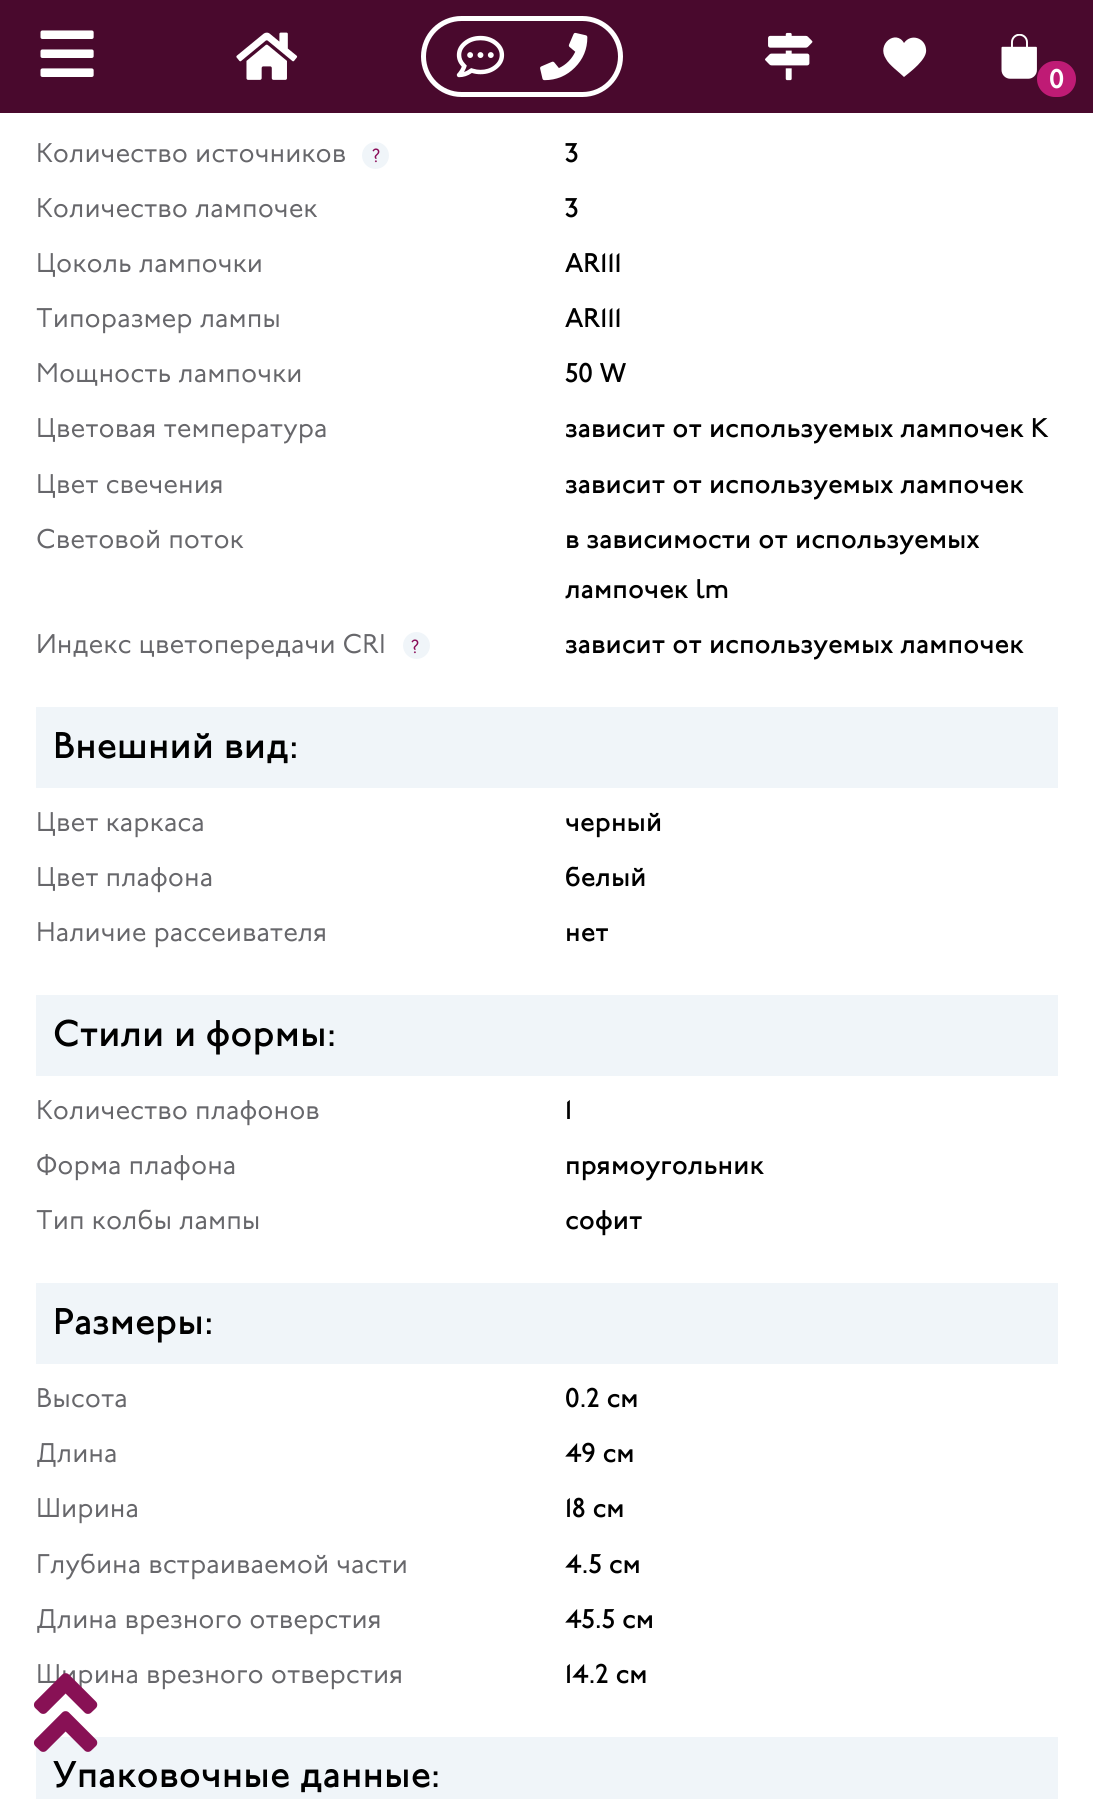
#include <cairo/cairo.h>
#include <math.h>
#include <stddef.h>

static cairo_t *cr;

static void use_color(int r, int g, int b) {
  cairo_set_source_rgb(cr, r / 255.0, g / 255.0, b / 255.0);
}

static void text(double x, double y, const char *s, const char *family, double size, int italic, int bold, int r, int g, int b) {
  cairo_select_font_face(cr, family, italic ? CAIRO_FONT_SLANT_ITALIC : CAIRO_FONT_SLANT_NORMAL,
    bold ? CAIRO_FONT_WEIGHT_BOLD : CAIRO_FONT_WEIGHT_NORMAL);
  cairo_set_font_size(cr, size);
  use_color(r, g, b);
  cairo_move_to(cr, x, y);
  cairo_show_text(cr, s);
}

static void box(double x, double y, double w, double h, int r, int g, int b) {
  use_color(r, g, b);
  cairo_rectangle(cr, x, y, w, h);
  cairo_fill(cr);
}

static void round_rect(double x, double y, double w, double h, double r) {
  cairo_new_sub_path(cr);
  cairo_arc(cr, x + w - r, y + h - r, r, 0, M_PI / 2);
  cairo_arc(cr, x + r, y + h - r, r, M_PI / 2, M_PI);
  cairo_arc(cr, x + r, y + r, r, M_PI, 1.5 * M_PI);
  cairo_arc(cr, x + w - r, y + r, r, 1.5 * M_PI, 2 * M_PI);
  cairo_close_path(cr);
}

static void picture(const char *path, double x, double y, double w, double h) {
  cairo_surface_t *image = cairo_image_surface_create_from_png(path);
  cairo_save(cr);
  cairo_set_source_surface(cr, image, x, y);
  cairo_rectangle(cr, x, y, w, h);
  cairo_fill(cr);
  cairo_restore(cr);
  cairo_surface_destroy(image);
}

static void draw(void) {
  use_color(255, 255, 255);
  cairo_paint(cr);
  box(0, 0, 1093, 113, 73, 9, 45);
  picture("img_01.png", 40, 30, 54, 47);
  picture("img_02.png", 236, 32, 62, 48);
  round_rect(423.5, 18.5, 197, 76, 38);
  use_color(255, 255, 255);
  cairo_set_line_width(cr, 5);
  cairo_stroke(cr);
  picture("img_03.png", 456, 35, 49, 43);
  picture("img_04.png", 540, 32, 48, 49);
  picture("img_05.png", 765, 32, 48, 49);
  cairo_new_path(cr);
  cairo_move_to(cr, 926, 49);
  cairo_curve_to(cr, 925, 38, 911, 33, 904, 43);
  cairo_curve_to(cr, 896, 29, 876, 44, 886, 59);
  cairo_curve_to(cr, 889, 65, 899, 72, 904, 77);
  cairo_curve_to(cr, 910, 72, 928, 59, 926, 49);
  cairo_close_path(cr);
  cairo_fill(cr);
  picture("img_06.png", 1001, 34, 36, 45);
  use_color(191, 27, 117);
  round_rect(1037, 61, 39, 36, 18);
  cairo_fill(cr);
  use_color(240, 245, 249);
  cairo_arc(cr, 375.5, 155.5, 13.5, 0, 2 * M_PI);
  cairo_fill(cr);
  cairo_arc(cr, 416.5, 645.5, 13.5, 0, 2 * M_PI);
  cairo_fill(cr);
  box(36, 707, 1022, 81, 240, 245, 249);
  box(36, 995, 1022, 81, 240, 245, 249);
  box(36, 1283, 1022, 81, 240, 245, 249);
  box(36, 1737, 1022, 62, 240, 245, 249);
  text(1049, 88, "0", "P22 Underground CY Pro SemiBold", 27, 0, 0, 255, 255, 255);
  text(36, 162, "Количество источников", "P22 Underground CY Pro", 27, 0, 0, 103, 103, 107);
  text(372, 162, "?", "P22 Underground CY Pro", 19, 0, 0, 137, 12, 88);
  text(565, 162, "3", "P22 Underground CY Pro Medium", 27, 0, 0, 0, 0, 0);
  text(36, 217, "Количество лампочек", "P22 Underground CY Pro", 27, 0, 0, 103, 103, 107);
  text(565, 217, "3", "P22 Underground CY Pro Medium", 27, 0, 0, 0, 0, 0);
  text(36, 272, "Цоколь лампочки", "P22 Underground CY Pro", 27, 0, 0, 103, 103, 107);
  text(565, 272, "AR111", "P22 Underground CY Pro Medium", 27, 0, 0, 0, 0, 0);
  text(36, 327, "Типоразмер лампы", "P22 Underground CY Pro", 27, 0, 0, 103, 103, 107);
  text(565, 327, "AR111", "P22 Underground CY Pro Medium", 27, 0, 0, 0, 0, 0);
  text(36, 382, "Мощность лампочки", "P22 Underground CY Pro", 27, 0, 0, 103, 103, 107);
  text(565, 382, "50 W", "P22 Underground CY Pro Medium", 27, 0, 0, 0, 0, 0);
  text(36, 437, "Цветовая температура", "P22 Underground CY Pro", 27, 0, 0, 103, 103, 107);
  text(565, 437, "зависит от используемых лампочек K", "P22 Underground CY Pro Medium", 27, 0, 0, 0, 0, 0);
  text(36, 493, "Цвет свечения", "P22 Underground CY Pro", 27, 0, 0, 103, 103, 107);
  text(565, 493, "зависит от используемых лампочек", "P22 Underground CY Pro Medium", 27, 0, 0, 0, 0, 0);
  text(36, 548, "Световой поток", "P22 Underground CY Pro", 27, 0, 0, 103, 103, 107);
  text(565, 548, "в зависимости от используемых", "P22 Underground CY Pro Medium", 27, 0, 0, 0, 0, 0);
  text(565, 598, "лампочек lm", "P22 Underground CY Pro Medium", 27, 0, 0, 0, 0, 0);
  text(36, 653, "Индекс цветопередачи CRI", "P22 Underground CY Pro", 27, 0, 0, 103, 103, 107);
  text(411, 653, "?", "P22 Underground CY Pro", 19, 0, 0, 137, 12, 88);
  text(565, 653, "зависит от используемых лампочек", "P22 Underground CY Pro Medium", 27, 0, 0, 0, 0, 0);
  text(53, 758, "Внешний вид:", "P22 Underground CY Pro Medium", 37.1, 0, 0, 0, 0, 0);
  text(36, 831, "Цвет каркаса", "P22 Underground CY Pro", 27, 0, 0, 103, 103, 107);
  text(565, 831, "черный", "P22 Underground CY Pro Medium", 27, 0, 0, 0, 0, 0);
  text(36, 886, "Цвет плафона", "P22 Underground CY Pro", 27, 0, 0, 103, 103, 107);
  text(565, 886, "белый", "P22 Underground CY Pro Medium", 27, 0, 0, 0, 0, 0);
  text(36, 941, "Наличие рассеивателя", "P22 Underground CY Pro", 27, 0, 0, 103, 103, 107);
  text(565, 941, "нет", "P22 Underground CY Pro Medium", 27, 0, 0, 0, 0, 0);
  text(53, 1046, "Стили и формы:", "P22 Underground CY Pro Medium", 37.1, 0, 0, 0, 0, 0);
  text(36, 1119, "Количество плафонов", "P22 Underground CY Pro", 27, 0, 0, 103, 103, 107);
  text(565, 1119, "1", "P22 Underground CY Pro Medium", 27, 0, 0, 0, 0, 0);
  text(36, 1174, "Форма плафона", "P22 Underground CY Pro", 27, 0, 0, 103, 103, 107);
  text(565, 1174, "прямоугольник", "P22 Underground CY Pro Medium", 27, 0, 0, 0, 0, 0);
  text(36, 1229, "Тип колбы лампы", "P22 Underground CY Pro", 27, 0, 0, 103, 103, 107);
  text(565, 1229, "софит", "P22 Underground CY Pro Medium", 27, 0, 0, 0, 0, 0);
  text(53, 1334, "Размеры:", "P22 Underground CY Pro Medium", 37.1, 0, 0, 0, 0, 0);
  text(36, 1407, "Высота", "P22 Underground CY Pro", 27, 0, 0, 103, 103, 107);
  text(565, 1407, "0.2 см", "P22 Underground CY Pro Medium", 27, 0, 0, 0, 0, 0);
  text(36, 1462, "Длина", "P22 Underground CY Pro", 27, 0, 0, 103, 103, 107);
  text(565, 1462, "49 см", "P22 Underground CY Pro Medium", 27, 0, 0, 0, 0, 0);
  text(36, 1517, "Ширина", "P22 Underground CY Pro", 27, 0, 0, 103, 103, 107);
  text(565, 1517, "18 см", "P22 Underground CY Pro Medium", 27, 0, 0, 0, 0, 0);
  text(36, 1573, "Глубина встраиваемой части", "P22 Underground CY Pro", 27, 0, 0, 103, 103, 107);
  text(565, 1573, "4.5 см", "P22 Underground CY Pro Medium", 27, 0, 0, 0, 0, 0);
  text(36, 1628, "Длина врезного отверстия", "P22 Underground CY Pro", 27, 0, 0, 103, 103, 107);
  text(565, 1628, "45.5 см", "P22 Underground CY Pro Medium", 27, 0, 0, 0, 0, 0);
  text(36, 1683, "Ширина врезного отверстия", "P22 Underground CY Pro", 27, 0, 0, 103, 103, 107);
  text(565, 1683, "14.2 см", "P22 Underground CY Pro Medium", 27, 0, 0, 0, 0, 0);
  text(53, 1787, "Упаковочные данные:", "P22 Underground CY Pro Medium", 37.1, 0, 0, 0, 0, 0);
  picture("img_07.png", 33, 1673, 65, 79);
}

int main(void) {
  cairo_surface_t *surface = cairo_image_surface_create(CAIRO_FORMAT_RGB24, 1093, 1799);
  cr = cairo_create(surface);
  cairo_font_options_t *options = cairo_font_options_create();
  cairo_font_options_set_hint_metrics(options, CAIRO_HINT_METRICS_OFF);
  cairo_font_options_set_hint_style(options, CAIRO_HINT_STYLE_NONE);
  cairo_set_font_options(cr, options);
  cairo_set_miter_limit(cr, 4);
  draw();
  cairo_surface_write_to_png(surface, "out.png");
  cairo_font_options_destroy(options);
  cairo_destroy(cr);
  cairo_surface_destroy(surface);
  return 0;
}
